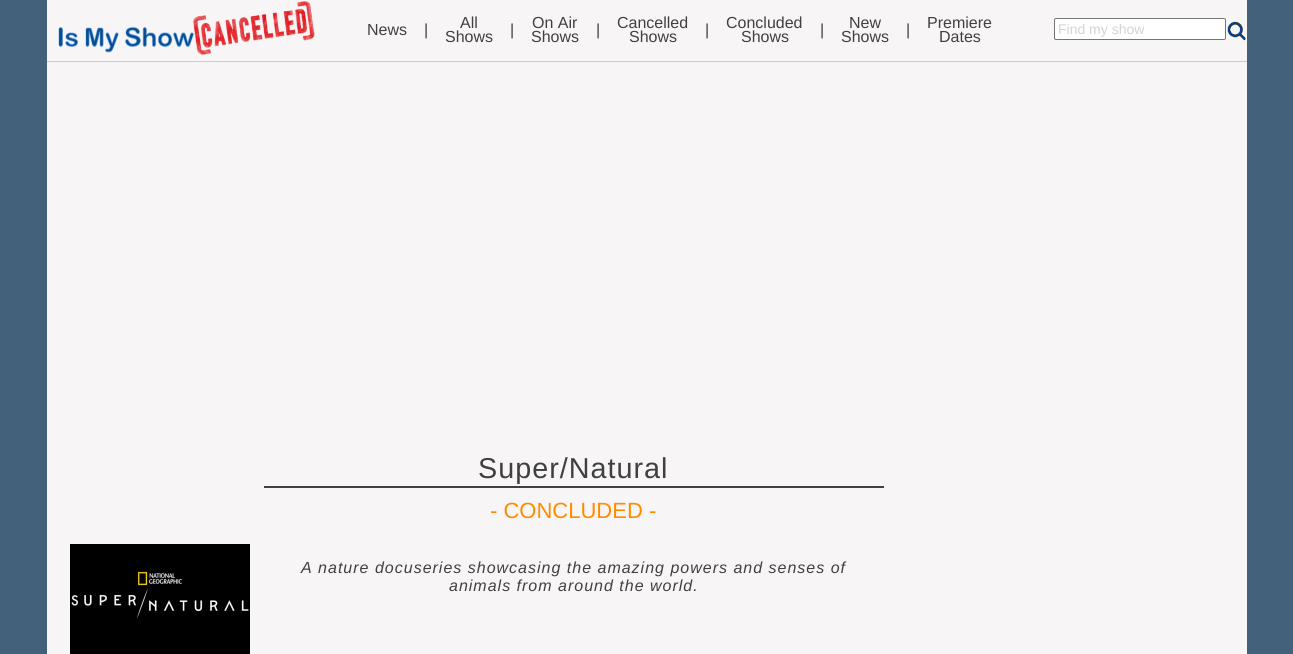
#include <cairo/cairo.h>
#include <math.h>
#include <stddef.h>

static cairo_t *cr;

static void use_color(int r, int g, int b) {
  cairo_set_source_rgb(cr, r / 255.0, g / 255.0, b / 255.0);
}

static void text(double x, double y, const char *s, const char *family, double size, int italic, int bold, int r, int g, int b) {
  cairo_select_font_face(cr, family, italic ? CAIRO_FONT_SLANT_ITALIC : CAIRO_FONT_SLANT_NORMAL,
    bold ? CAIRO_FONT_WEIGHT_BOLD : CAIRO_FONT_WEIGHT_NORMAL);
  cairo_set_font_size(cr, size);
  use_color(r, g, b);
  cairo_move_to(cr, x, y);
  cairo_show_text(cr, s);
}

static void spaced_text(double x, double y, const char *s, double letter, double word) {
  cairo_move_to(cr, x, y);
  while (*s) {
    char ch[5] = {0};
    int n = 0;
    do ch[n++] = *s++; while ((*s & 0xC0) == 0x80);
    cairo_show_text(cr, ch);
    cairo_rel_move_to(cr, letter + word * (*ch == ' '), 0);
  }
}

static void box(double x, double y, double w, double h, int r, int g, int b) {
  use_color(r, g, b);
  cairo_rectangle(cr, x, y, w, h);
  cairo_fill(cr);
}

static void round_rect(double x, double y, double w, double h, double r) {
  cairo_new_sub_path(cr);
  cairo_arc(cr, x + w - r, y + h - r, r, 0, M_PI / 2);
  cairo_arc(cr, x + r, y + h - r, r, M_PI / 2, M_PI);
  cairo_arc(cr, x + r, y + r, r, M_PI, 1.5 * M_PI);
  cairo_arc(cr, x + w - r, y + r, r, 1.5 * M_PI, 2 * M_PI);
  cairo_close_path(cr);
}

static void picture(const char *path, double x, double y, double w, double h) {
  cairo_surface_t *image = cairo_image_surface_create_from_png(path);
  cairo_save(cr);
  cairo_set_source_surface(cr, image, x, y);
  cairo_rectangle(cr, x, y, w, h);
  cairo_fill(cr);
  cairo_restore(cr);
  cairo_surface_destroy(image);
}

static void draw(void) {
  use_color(67, 97, 122);
  cairo_paint(cr);
  box(47, 0, 1200, 654, 247, 245, 245);
  picture("img_01.png", 58, 1, 257, 54);
  use_color(255, 255, 255);
  round_rect(1054.5, 18.5, 171, 21, 1.5);
  cairo_fill_preserve(cr);
  use_color(118, 118, 118);
  cairo_set_line_width(cr, 1);
  cairo_stroke(cr);
  picture("img_02.png", 1227, 18, 20, 23);
  box(47, 61, 1200, 1, 202, 202, 202);
  box(264, 486, 620, 2, 64, 64, 64);
  picture("img_03.png", 70, 544, 180, 110);
  text(367, 35, "News", "Liberation Sans", 16, 0, 0, 64, 64, 64);
  text(424, 35, "|", "Liberation Sans", 16, 0, 0, 64, 64, 64);
  text(460, 28, "All", "Liberation Sans", 16, 0, 0, 64, 64, 64);
  text(445, 42, "Shows", "Liberation Sans", 16, 0, 0, 64, 64, 64);
  text(510, 35, "|", "Liberation Sans", 16, 0, 0, 64, 64, 64);
  text(532, 28, "On Air", "Liberation Sans", 16, 0, 0, 64, 64, 64);
  text(531, 42, "Shows", "Liberation Sans", 16, 0, 0, 64, 64, 64);
  text(596, 35, "|", "Liberation Sans", 16, 0, 0, 64, 64, 64);
  text(617, 28, "Cancelled", "Liberation Sans", 16, 0, 0, 64, 64, 64);
  text(629, 42, "Shows", "Liberation Sans", 16, 0, 0, 64, 64, 64);
  text(705, 35, "|", "Liberation Sans", 16, 0, 0, 64, 64, 64);
  text(726, 28, "Concluded", "Liberation Sans", 16, 0, 0, 64, 64, 64);
  text(741, 42, "Shows", "Liberation Sans", 16, 0, 0, 64, 64, 64);
  text(820, 35, "|", "Liberation Sans", 16, 0, 0, 64, 64, 64);
  text(849, 28, "New", "Liberation Sans", 16, 0, 0, 64, 64, 64);
  text(841, 42, "Shows", "Liberation Sans", 16, 0, 0, 64, 64, 64);
  text(906, 35, "|", "Liberation Sans", 16, 0, 0, 64, 64, 64);
  text(927, 28, "Premiere", "Liberation Sans", 16, 0, 0, 64, 64, 64);
  text(939, 42, "Dates", "Liberation Sans", 16, 0, 0, 64, 64, 64);
  text(1058, 34, "Find my show", "Liberation Sans", 14, 0, 0, 211, 211, 211);
  cairo_set_font_size(cr, 28.75);
  use_color(64, 64, 64);
  spaced_text(478, 478, "Super/Natural", 1, 0);
  text(490, 518, "- CONCLUDED -", "Liberation Sans", 22, 0, 0, 255, 140, 0);
  cairo_select_font_face(cr, "Liberation Sans", CAIRO_FONT_SLANT_ITALIC, CAIRO_FONT_WEIGHT_NORMAL);
  cairo_set_font_size(cr, 16);
  use_color(64, 64, 64);
  spaced_text(301, 573, "A nature docuseries showcasing the amazing powers and senses of", 1, 0);
  spaced_text(449, 591, "animals from around the world.", 1, 0);
}

int main(void) {
  cairo_surface_t *surface = cairo_image_surface_create(CAIRO_FORMAT_RGB24, 1293, 654);
  cr = cairo_create(surface);
  cairo_font_options_t *options = cairo_font_options_create();
  cairo_font_options_set_hint_metrics(options, CAIRO_HINT_METRICS_OFF);
  cairo_font_options_set_hint_style(options, CAIRO_HINT_STYLE_NONE);
  cairo_set_font_options(cr, options);
  cairo_set_miter_limit(cr, 4);
  draw();
  cairo_surface_write_to_png(surface, "out.png");
  cairo_font_options_destroy(options);
  cairo_destroy(cr);
  cairo_surface_destroy(surface);
  return 0;
}
